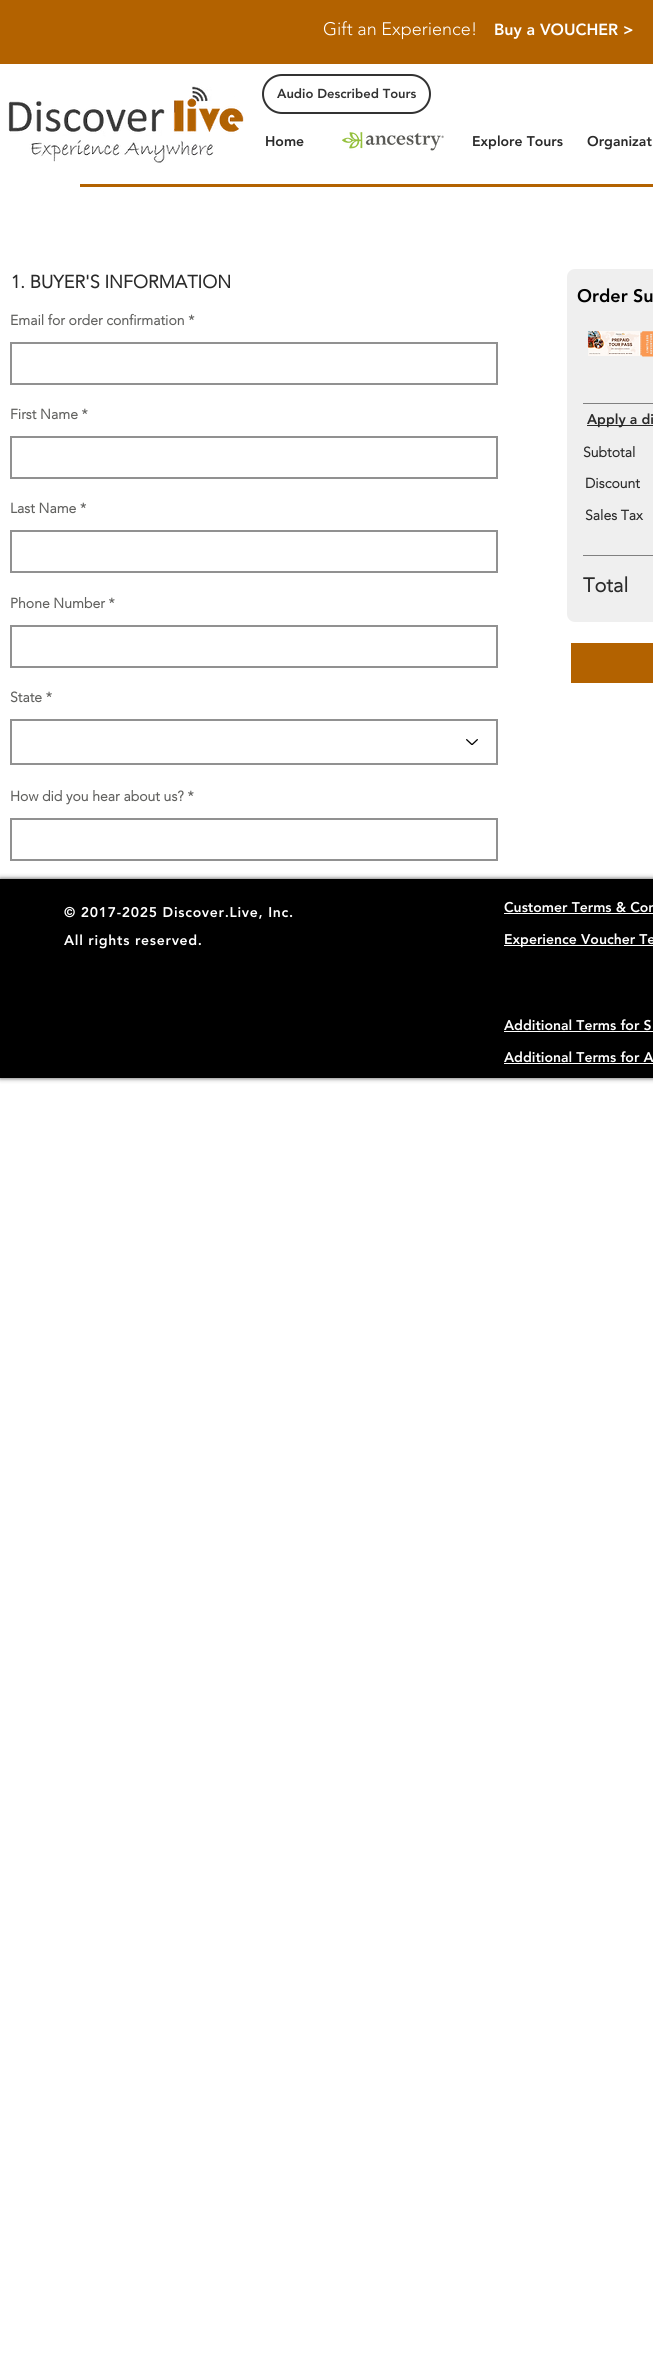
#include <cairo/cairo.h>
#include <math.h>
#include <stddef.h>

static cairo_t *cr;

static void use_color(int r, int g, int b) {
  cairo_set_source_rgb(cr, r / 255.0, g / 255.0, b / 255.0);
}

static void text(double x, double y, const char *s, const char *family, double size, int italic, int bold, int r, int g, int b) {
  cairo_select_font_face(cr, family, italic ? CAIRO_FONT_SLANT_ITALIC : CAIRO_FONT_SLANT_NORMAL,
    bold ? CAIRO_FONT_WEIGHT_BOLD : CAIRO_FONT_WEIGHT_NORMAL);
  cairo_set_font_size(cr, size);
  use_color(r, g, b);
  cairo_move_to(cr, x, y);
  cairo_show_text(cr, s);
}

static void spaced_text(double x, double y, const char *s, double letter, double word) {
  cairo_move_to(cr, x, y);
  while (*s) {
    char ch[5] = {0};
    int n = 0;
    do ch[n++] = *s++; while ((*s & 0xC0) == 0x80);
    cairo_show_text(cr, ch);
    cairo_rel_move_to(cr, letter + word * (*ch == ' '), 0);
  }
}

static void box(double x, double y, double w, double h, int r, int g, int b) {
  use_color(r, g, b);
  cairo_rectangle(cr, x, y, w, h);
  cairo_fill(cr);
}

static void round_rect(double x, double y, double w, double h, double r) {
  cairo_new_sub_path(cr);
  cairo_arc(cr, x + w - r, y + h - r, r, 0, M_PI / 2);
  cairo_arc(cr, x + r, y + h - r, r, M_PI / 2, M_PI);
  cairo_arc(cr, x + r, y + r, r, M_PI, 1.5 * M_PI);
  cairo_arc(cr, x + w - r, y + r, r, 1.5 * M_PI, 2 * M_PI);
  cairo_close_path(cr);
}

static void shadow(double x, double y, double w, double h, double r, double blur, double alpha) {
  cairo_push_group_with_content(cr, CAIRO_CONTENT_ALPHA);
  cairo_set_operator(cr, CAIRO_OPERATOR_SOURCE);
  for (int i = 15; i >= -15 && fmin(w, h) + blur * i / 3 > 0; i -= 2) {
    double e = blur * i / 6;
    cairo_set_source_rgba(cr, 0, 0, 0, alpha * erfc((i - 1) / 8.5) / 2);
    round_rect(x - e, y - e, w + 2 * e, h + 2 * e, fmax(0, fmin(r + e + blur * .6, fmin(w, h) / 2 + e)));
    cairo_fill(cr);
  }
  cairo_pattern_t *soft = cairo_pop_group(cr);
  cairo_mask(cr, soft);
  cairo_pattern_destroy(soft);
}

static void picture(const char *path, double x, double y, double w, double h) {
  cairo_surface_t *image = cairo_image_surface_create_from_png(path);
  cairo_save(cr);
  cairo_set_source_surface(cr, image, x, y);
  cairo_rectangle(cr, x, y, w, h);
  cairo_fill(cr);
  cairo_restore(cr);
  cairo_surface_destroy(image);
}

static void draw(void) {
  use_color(255, 255, 255);
  cairo_paint(cr);
  box(0, 0, 653, 64, 179, 98, 0);
  picture("img_01.png", 8, 86, 236, 77);
  round_rect(263, 75, 167, 38, 19);
  use_color(50, 50, 50);
  cairo_stroke(cr);
  picture("img_02.png", 342, 132, 102, 19);
  box(80, 184, 573, 3, 179, 98, 0);
  cairo_rectangle(cr, 11, 343, 486, 41);
  use_color(145, 145, 145);
  cairo_stroke(cr);
  cairo_rectangle(cr, 11, 437, 486, 41);
  cairo_stroke(cr);
  cairo_rectangle(cr, 11, 531, 486, 41);
  cairo_stroke(cr);
  cairo_rectangle(cr, 11, 626, 486, 41);
  cairo_stroke(cr);
  cairo_rectangle(cr, 11, 720, 486, 44);
  cairo_stroke(cr);
  picture("img_03.png", 466, 739, 12, 6);
  cairo_rectangle(cr, 11, 819, 486, 41);
  cairo_stroke(cr);
  use_color(239, 239, 239);
  round_rect(566, 268, 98, 355, 9);
  cairo_fill_preserve(cr);
  use_color(255, 255, 255);
  cairo_stroke(cr);
  picture("img_04.png", 587, 331, 66, 26);
  box(583, 403, 70, 1, 128, 128, 128);
  box(587, 425, 66, 1, 42, 42, 42);
  box(583, 555, 70, 1, 128, 128, 128);
  box(571, 643, 82, 40, 179, 98, 0);
  use_color(0, 0, 0);
  shadow(0, 879, 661, 199, 0, 2.5, 0.7);
  box(0, 879, 653, 199, 0, 0, 0);
  box(504, 913, 149, 1, 255, 255, 255);
  box(504, 945, 149, 1, 255, 255, 255);
  box(504, 1031, 149, 1, 255, 255, 255);
  box(504, 1063, 149, 1, 255, 255, 255);
  text(323, 35, "Gift an Experience!", "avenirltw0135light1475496 Light", 18, 0, 0, 255, 255, 255);
  text(494, 35, "Buy a VOUCHER >", "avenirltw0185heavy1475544 Black", 16, 0, 0, 255, 255, 255);
  text(277, 98, "Audio Described Tours", "avenirltw0185heavy1475544 Black", 13, 0, 0, 50, 50, 50);
  text(265, 146, "Home", "avenirltw0185heavy1475544 Black", 14, 0, 0, 42, 42, 42);
  text(472, 146, "Explore Tours", "avenirltw0185heavy1475544 Black", 14, 0, 0, 42, 42, 42);
  text(587, 146, "Organizat", "avenirltw0185heavy1475544 Black", 14, 0, 0, 42, 42, 42);
  text(11, 288, "1. BUYER'S INFORMATION", "avenirltw0135light1475496", 18, 0, 1, 42, 42, 42);
  text(10, 325, "Email for order confirmation *", "avenirltw0135light1475496", 14, 0, 1, 97, 97, 95);
  text(10, 419, "First Name *", "avenirltw0135light1475496", 14, 0, 1, 97, 97, 95);
  text(10, 513, "Last Name *", "avenirltw0135light1475496", 14, 0, 1, 97, 97, 95);
  text(10, 608, "Phone Number *", "avenirltw0135light1475496", 14, 0, 1, 97, 97, 95);
  text(10, 702, "State *", "avenirltw0135light1475496", 14, 0, 1, 97, 97, 95);
  text(10, 801, "How did you hear about us? *", "avenirltw0135light1475496", 14, 0, 1, 97, 97, 95);
  text(577, 302, "Order Su", "avenirltw0185heavy1475544 Black", 18, 0, 0, 0, 0, 0);
  text(587, 424, "Apply a di", "avenirltw0185heavy1475544 Black", 14, 0, 0, 42, 42, 42);
  text(583, 457, "Subtotal", "avenirltw0135light1475496", 14, 0, 1, 42, 42, 42);
  text(585, 488, "Discount", "avenirltw0135light1475496", 14, 0, 1, 42, 42, 42);
  text(585, 520, "Sales Tax", "avenirltw0135light1475496", 14, 0, 1, 42, 42, 42);
  text(583, 592, "Total", "avenirltw0135light1475496", 20, 0, 1, 42, 42, 42);
  cairo_select_font_face(cr, "avenirltw0185heavy1475544 Black", CAIRO_FONT_SLANT_NORMAL, CAIRO_FONT_WEIGHT_NORMAL);
  cairo_set_font_size(cr, 14);
  use_color(255, 255, 255);
  spaced_text(64, 917, "© 2017-2025 Discover.Live, Inc.", 0.7, 0);
  spaced_text(64, 945, "All rights reserved.", 0.7, 0);
  text(504, 912, "Customer Terms & Con", "avenirltw0185heavy1475544 Black", 14, 0, 0, 255, 255, 255);
  text(504, 944, "Experience Voucher Te", "avenirltw0185heavy1475544 Black", 14, 0, 0, 255, 255, 255);
  text(504, 1030, "Additional Terms for S", "avenirltw0185heavy1475544 Black", 14, 0, 0, 255, 255, 255);
  text(504, 1062, "Additional Terms for A", "avenirltw0185heavy1475544 Black", 14, 0, 0, 255, 255, 255);
}

int main(void) {
  cairo_surface_t *surface = cairo_image_surface_create(CAIRO_FORMAT_RGB24, 653, 2366);
  cr = cairo_create(surface);
  cairo_font_options_t *options = cairo_font_options_create();
  cairo_font_options_set_hint_metrics(options, CAIRO_HINT_METRICS_OFF);
  cairo_font_options_set_hint_style(options, CAIRO_HINT_STYLE_NONE);
  cairo_set_font_options(cr, options);
  cairo_set_miter_limit(cr, 4);
  draw();
  cairo_surface_write_to_png(surface, "out.png");
  cairo_font_options_destroy(options);
  cairo_destroy(cr);
  cairo_surface_destroy(surface);
  return 0;
}
